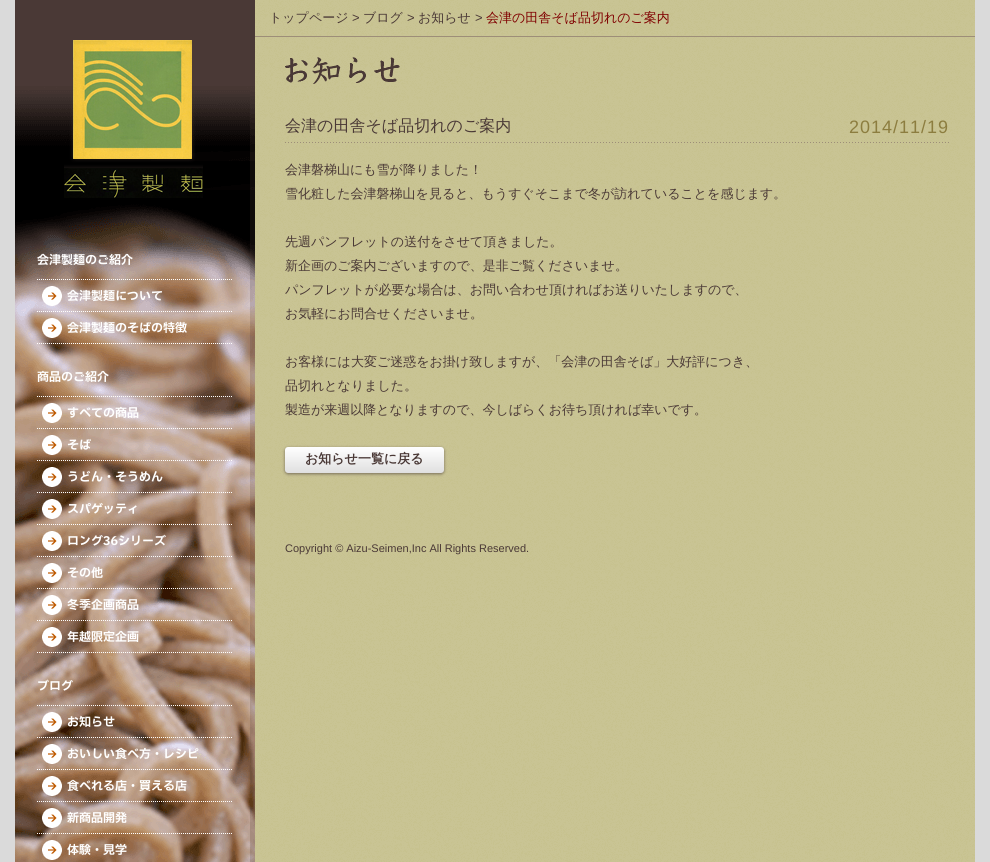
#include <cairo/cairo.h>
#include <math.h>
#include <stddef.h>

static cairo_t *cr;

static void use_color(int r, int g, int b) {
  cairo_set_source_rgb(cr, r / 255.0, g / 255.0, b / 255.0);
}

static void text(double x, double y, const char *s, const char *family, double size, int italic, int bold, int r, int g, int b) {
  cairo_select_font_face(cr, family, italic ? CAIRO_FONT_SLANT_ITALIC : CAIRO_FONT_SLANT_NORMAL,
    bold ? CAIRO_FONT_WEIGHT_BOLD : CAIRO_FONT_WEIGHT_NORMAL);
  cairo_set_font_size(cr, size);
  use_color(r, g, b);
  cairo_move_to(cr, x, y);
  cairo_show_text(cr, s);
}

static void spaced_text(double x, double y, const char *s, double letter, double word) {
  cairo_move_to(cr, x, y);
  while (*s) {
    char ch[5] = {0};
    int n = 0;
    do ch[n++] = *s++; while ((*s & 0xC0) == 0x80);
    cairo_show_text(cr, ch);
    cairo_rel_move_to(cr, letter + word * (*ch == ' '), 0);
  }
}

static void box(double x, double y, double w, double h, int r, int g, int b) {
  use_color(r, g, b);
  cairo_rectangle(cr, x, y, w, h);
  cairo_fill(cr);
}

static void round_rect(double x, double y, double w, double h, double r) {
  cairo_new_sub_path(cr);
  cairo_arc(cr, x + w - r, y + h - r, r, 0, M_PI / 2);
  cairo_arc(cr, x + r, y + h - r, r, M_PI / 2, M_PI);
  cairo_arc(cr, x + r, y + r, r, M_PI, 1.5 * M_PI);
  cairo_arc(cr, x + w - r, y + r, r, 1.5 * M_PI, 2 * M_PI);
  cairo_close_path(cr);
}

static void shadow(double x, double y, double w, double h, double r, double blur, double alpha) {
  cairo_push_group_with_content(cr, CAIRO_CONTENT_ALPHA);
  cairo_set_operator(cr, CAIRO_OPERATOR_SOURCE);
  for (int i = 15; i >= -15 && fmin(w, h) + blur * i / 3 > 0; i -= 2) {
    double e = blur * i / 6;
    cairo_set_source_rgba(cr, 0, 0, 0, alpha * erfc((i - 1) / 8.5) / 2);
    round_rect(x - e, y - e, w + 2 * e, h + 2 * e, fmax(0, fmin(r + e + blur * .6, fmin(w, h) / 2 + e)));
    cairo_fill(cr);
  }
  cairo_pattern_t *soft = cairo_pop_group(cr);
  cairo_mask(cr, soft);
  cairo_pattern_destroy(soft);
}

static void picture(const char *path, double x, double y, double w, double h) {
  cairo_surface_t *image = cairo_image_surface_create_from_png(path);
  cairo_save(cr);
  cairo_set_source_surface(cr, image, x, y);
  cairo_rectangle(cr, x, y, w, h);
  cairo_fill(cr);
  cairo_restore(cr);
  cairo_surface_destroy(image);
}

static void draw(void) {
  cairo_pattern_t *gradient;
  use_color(218, 218, 218);
  cairo_paint(cr);
  picture("img_01.png", 255, 588, 720, 274);
  picture("img_02.png", 15, 0, 240, 862);
  picture("img_03.png", 64, 40, 139, 158);
  cairo_new_path(cr);
  cairo_move_to(cr, 37, 279.5);
  cairo_line_to(cr, 233, 279.5);
  use_color(255, 255, 255);
  cairo_set_line_width(cr, 1);
  cairo_set_dash(cr, (double[]){1, 1}, 2, 0);
  cairo_stroke(cr);
  cairo_new_path(cr);
  cairo_move_to(cr, 37, 311.5);
  cairo_line_to(cr, 233, 311.5);
  cairo_stroke(cr);
  picture("img_04.png", 42, 286, 20, 20);
  cairo_new_path(cr);
  cairo_move_to(cr, 37, 343.5);
  cairo_line_to(cr, 233, 343.5);
  cairo_stroke(cr);
  picture("img_05.png", 42, 318, 20, 20);
  cairo_new_path(cr);
  cairo_move_to(cr, 37, 396.5);
  cairo_line_to(cr, 233, 396.5);
  cairo_stroke(cr);
  cairo_new_path(cr);
  cairo_move_to(cr, 37, 428.5);
  cairo_line_to(cr, 233, 428.5);
  cairo_stroke(cr);
  picture("img_06.png", 42, 403, 20, 20);
  cairo_new_path(cr);
  cairo_move_to(cr, 37, 460.5);
  cairo_line_to(cr, 233, 460.5);
  cairo_stroke(cr);
  picture("img_07.png", 42, 435, 20, 20);
  cairo_new_path(cr);
  cairo_move_to(cr, 37, 492.5);
  cairo_line_to(cr, 233, 492.5);
  cairo_stroke(cr);
  picture("img_08.png", 42, 467, 20, 20);
  cairo_new_path(cr);
  cairo_move_to(cr, 37, 524.5);
  cairo_line_to(cr, 233, 524.5);
  cairo_stroke(cr);
  picture("img_09.png", 42, 499, 20, 20);
  cairo_new_path(cr);
  cairo_move_to(cr, 37, 556.5);
  cairo_line_to(cr, 233, 556.5);
  cairo_stroke(cr);
  picture("img_10.png", 42, 531, 20, 20);
  cairo_new_path(cr);
  cairo_move_to(cr, 37, 588.5);
  cairo_line_to(cr, 233, 588.5);
  cairo_stroke(cr);
  picture("img_11.png", 42, 563, 20, 20);
  cairo_new_path(cr);
  cairo_move_to(cr, 37, 620.5);
  cairo_line_to(cr, 233, 620.5);
  cairo_stroke(cr);
  picture("img_12.png", 42, 595, 20, 20);
  cairo_new_path(cr);
  cairo_move_to(cr, 37, 652.5);
  cairo_line_to(cr, 233, 652.5);
  cairo_stroke(cr);
  picture("img_13.png", 42, 627, 20, 20);
  cairo_new_path(cr);
  cairo_move_to(cr, 37, 705.5);
  cairo_line_to(cr, 233, 705.5);
  cairo_stroke(cr);
  cairo_new_path(cr);
  cairo_move_to(cr, 37, 737.5);
  cairo_line_to(cr, 233, 737.5);
  cairo_stroke(cr);
  picture("img_14.png", 42, 712, 20, 20);
  cairo_new_path(cr);
  cairo_move_to(cr, 37, 769.5);
  cairo_line_to(cr, 233, 769.5);
  cairo_stroke(cr);
  picture("img_15.png", 42, 744, 20, 20);
  cairo_new_path(cr);
  cairo_move_to(cr, 37, 801.5);
  cairo_line_to(cr, 233, 801.5);
  cairo_stroke(cr);
  picture("img_16.png", 42, 776, 20, 20);
  cairo_new_path(cr);
  cairo_move_to(cr, 37, 833.5);
  cairo_line_to(cr, 233, 833.5);
  cairo_stroke(cr);
  picture("img_17.png", 42, 808, 20, 20);
  picture("img_18.png", 42, 840, 20, 20);
  picture("img_19.png", 255, 0, 720, 588);
  box(255, 36, 720, 1, 157, 142, 120);
  picture("img_20.png", 285, 57, 115, 27);
  picture("img_21.png", 285, 142, 664, 1);
  use_color(83, 70, 64);
  shadow(285, 448, 159, 26, 3, 1.5, 0.7);
  gradient = cairo_pattern_create_linear(365, 447, 365, 473);
  cairo_pattern_add_color_stop_rgba(gradient, 0, 1, 1, 1, 1);
  cairo_pattern_add_color_stop_rgba(gradient, 1, 0.878, 0.878, 0.878, 1);
  cairo_set_source(cr, gradient);
  cairo_pattern_destroy(gradient);
  round_rect(285, 447, 159, 26, 3);
  cairo_fill(cr);
  text(37, 264, "会津製麺のご紹介", "IBM Plex Sans JP", 12, 0, 1, 255, 255, 255);
  text(67, 300, "会津製麺について", "IBM Plex Sans JP", 12, 0, 1, 255, 255, 255);
  text(67, 332, "会津製麺のそばの特徴", "IBM Plex Sans JP", 12, 0, 1, 255, 255, 255);
  text(37, 381, "商品のご紹介", "IBM Plex Sans JP", 12, 0, 1, 255, 255, 255);
  text(67, 417, "すべての商品", "IBM Plex Sans JP", 12, 0, 1, 255, 255, 255);
  text(67, 449, "そば", "IBM Plex Sans JP", 12, 0, 1, 255, 255, 255);
  text(67, 481, "うどん・そうめん", "IBM Plex Sans JP", 12, 0, 1, 255, 255, 255);
  text(67, 513, "スパゲッティ", "IBM Plex Sans JP", 12, 0, 1, 255, 255, 255);
  text(67, 545, "ロング36シリーズ", "IBM Plex Sans JP", 12, 0, 1, 255, 255, 255);
  text(67, 577, "その他", "IBM Plex Sans JP", 12, 0, 1, 255, 255, 255);
  text(67, 609, "冬季企画商品", "IBM Plex Sans JP", 12, 0, 1, 255, 255, 255);
  text(67, 641, "年越限定企画", "IBM Plex Sans JP", 12, 0, 1, 255, 255, 255);
  text(37, 690, "ブログ", "IBM Plex Sans JP", 12, 0, 1, 255, 255, 255);
  text(67, 726, "お知らせ", "IBM Plex Sans JP", 12, 0, 1, 255, 255, 255);
  text(67, 758, "おいしい食べ方・レシピ", "IBM Plex Sans JP", 12, 0, 1, 255, 255, 255);
  text(67, 790, "食べれる店・買える店", "IBM Plex Sans JP", 12, 0, 1, 255, 255, 255);
  text(67, 822, "新商品開発", "IBM Plex Sans JP", 12, 0, 1, 255, 255, 255);
  text(67, 854, "体験・見学", "IBM Plex Sans JP", 12, 0, 1, 255, 255, 255);
  text(269, 22, "トップページ", "WenQuanYi Zen Hei Medium", 13, 0, 0, 74, 57, 54);
  text(352, 22, ">", "Liberation Sans", 13, 0, 0, 74, 57, 54);
  text(363, 22, "ブログ", "WenQuanYi Zen Hei Medium", 13, 0, 0, 74, 57, 54);
  text(407, 22, ">", "Liberation Sans", 13, 0, 0, 74, 57, 54);
  text(418, 22, "お知らせ", "WenQuanYi Zen Hei Medium", 13, 0, 0, 74, 57, 54);
  text(475, 22, ">", "Liberation Sans", 13, 0, 0, 74, 57, 54);
  text(486, 22, "会津の田舎そば品切れのご案内", "WenQuanYi Zen Hei Medium", 13, 0, 0, 128, 0, 0);
  text(285, 131, "会津の田舎そば品切れのご案内", "WenQuanYi Zen Hei Medium", 16, 0, 0, 74, 57, 54);
  cairo_select_font_face(cr, "Liberation Sans", CAIRO_FONT_SLANT_NORMAL, CAIRO_FONT_WEIGHT_NORMAL);
  cairo_set_font_size(cr, 18);
  use_color(140, 125, 63);
  spaced_text(849, 133, "2014/11/19", 1, 0);
  text(285, 174, "会津磐梯山にも雪が降りました！", "WenQuanYi Zen Hei Medium", 13, 0, 0, 74, 57, 54);
  text(285, 198, "雪化粧した会津磐梯山を見ると、もうすぐそこまで冬が訪れていることを感じます。", "WenQuanYi Zen Hei Medium", 13, 0, 0, 74, 57, 54);
  text(285, 246, "先週パンフレットの送付をさせて頂きました。", "WenQuanYi Zen Hei Medium", 13, 0, 0, 74, 57, 54);
  text(285, 270, "新企画のご案内ございますので、是非ご覧くださいませ。", "WenQuanYi Zen Hei Medium", 13, 0, 0, 74, 57, 54);
  text(285, 294, "パンフレットが必要な場合は、お問い合わせ頂ければお送りいたしますので、", "WenQuanYi Zen Hei Medium", 13, 0, 0, 74, 57, 54);
  text(285, 318, "お気軽にお問合せくださいませ。", "WenQuanYi Zen Hei Medium", 13, 0, 0, 74, 57, 54);
  text(285, 366, "お客様には大変ご迷惑をお掛け致しますが、「会津の田舎そば」大好評につき、", "WenQuanYi Zen Hei Medium", 13, 0, 0, 74, 57, 54);
  text(285, 390, "品切れとなりました。", "WenQuanYi Zen Hei Medium", 13, 0, 0, 74, 57, 54);
  text(285, 414, "製造が来週以降となりますので、今しばらくお待ち頂ければ幸いです。", "WenQuanYi Zen Hei Medium", 13, 0, 0, 74, 57, 54);
  text(305, 463, "お知らせ一覧に戻る", "WenQuanYi Zen Hei", 13, 0, 1, 74, 57, 54);
  text(285, 552, "Copyright © Aizu-Seimen,Inc All Rights Reserved.", "Liberation Sans", 11, 0, 0, 74, 57, 54);
}

int main(void) {
  cairo_surface_t *surface = cairo_image_surface_create(CAIRO_FORMAT_RGB24, 990, 862);
  cr = cairo_create(surface);
  cairo_font_options_t *options = cairo_font_options_create();
  cairo_font_options_set_hint_metrics(options, CAIRO_HINT_METRICS_OFF);
  cairo_font_options_set_hint_style(options, CAIRO_HINT_STYLE_NONE);
  cairo_set_font_options(cr, options);
  cairo_set_miter_limit(cr, 4);
  draw();
  cairo_surface_write_to_png(surface, "out.png");
  cairo_font_options_destroy(options);
  cairo_destroy(cr);
  cairo_surface_destroy(surface);
  return 0;
}
